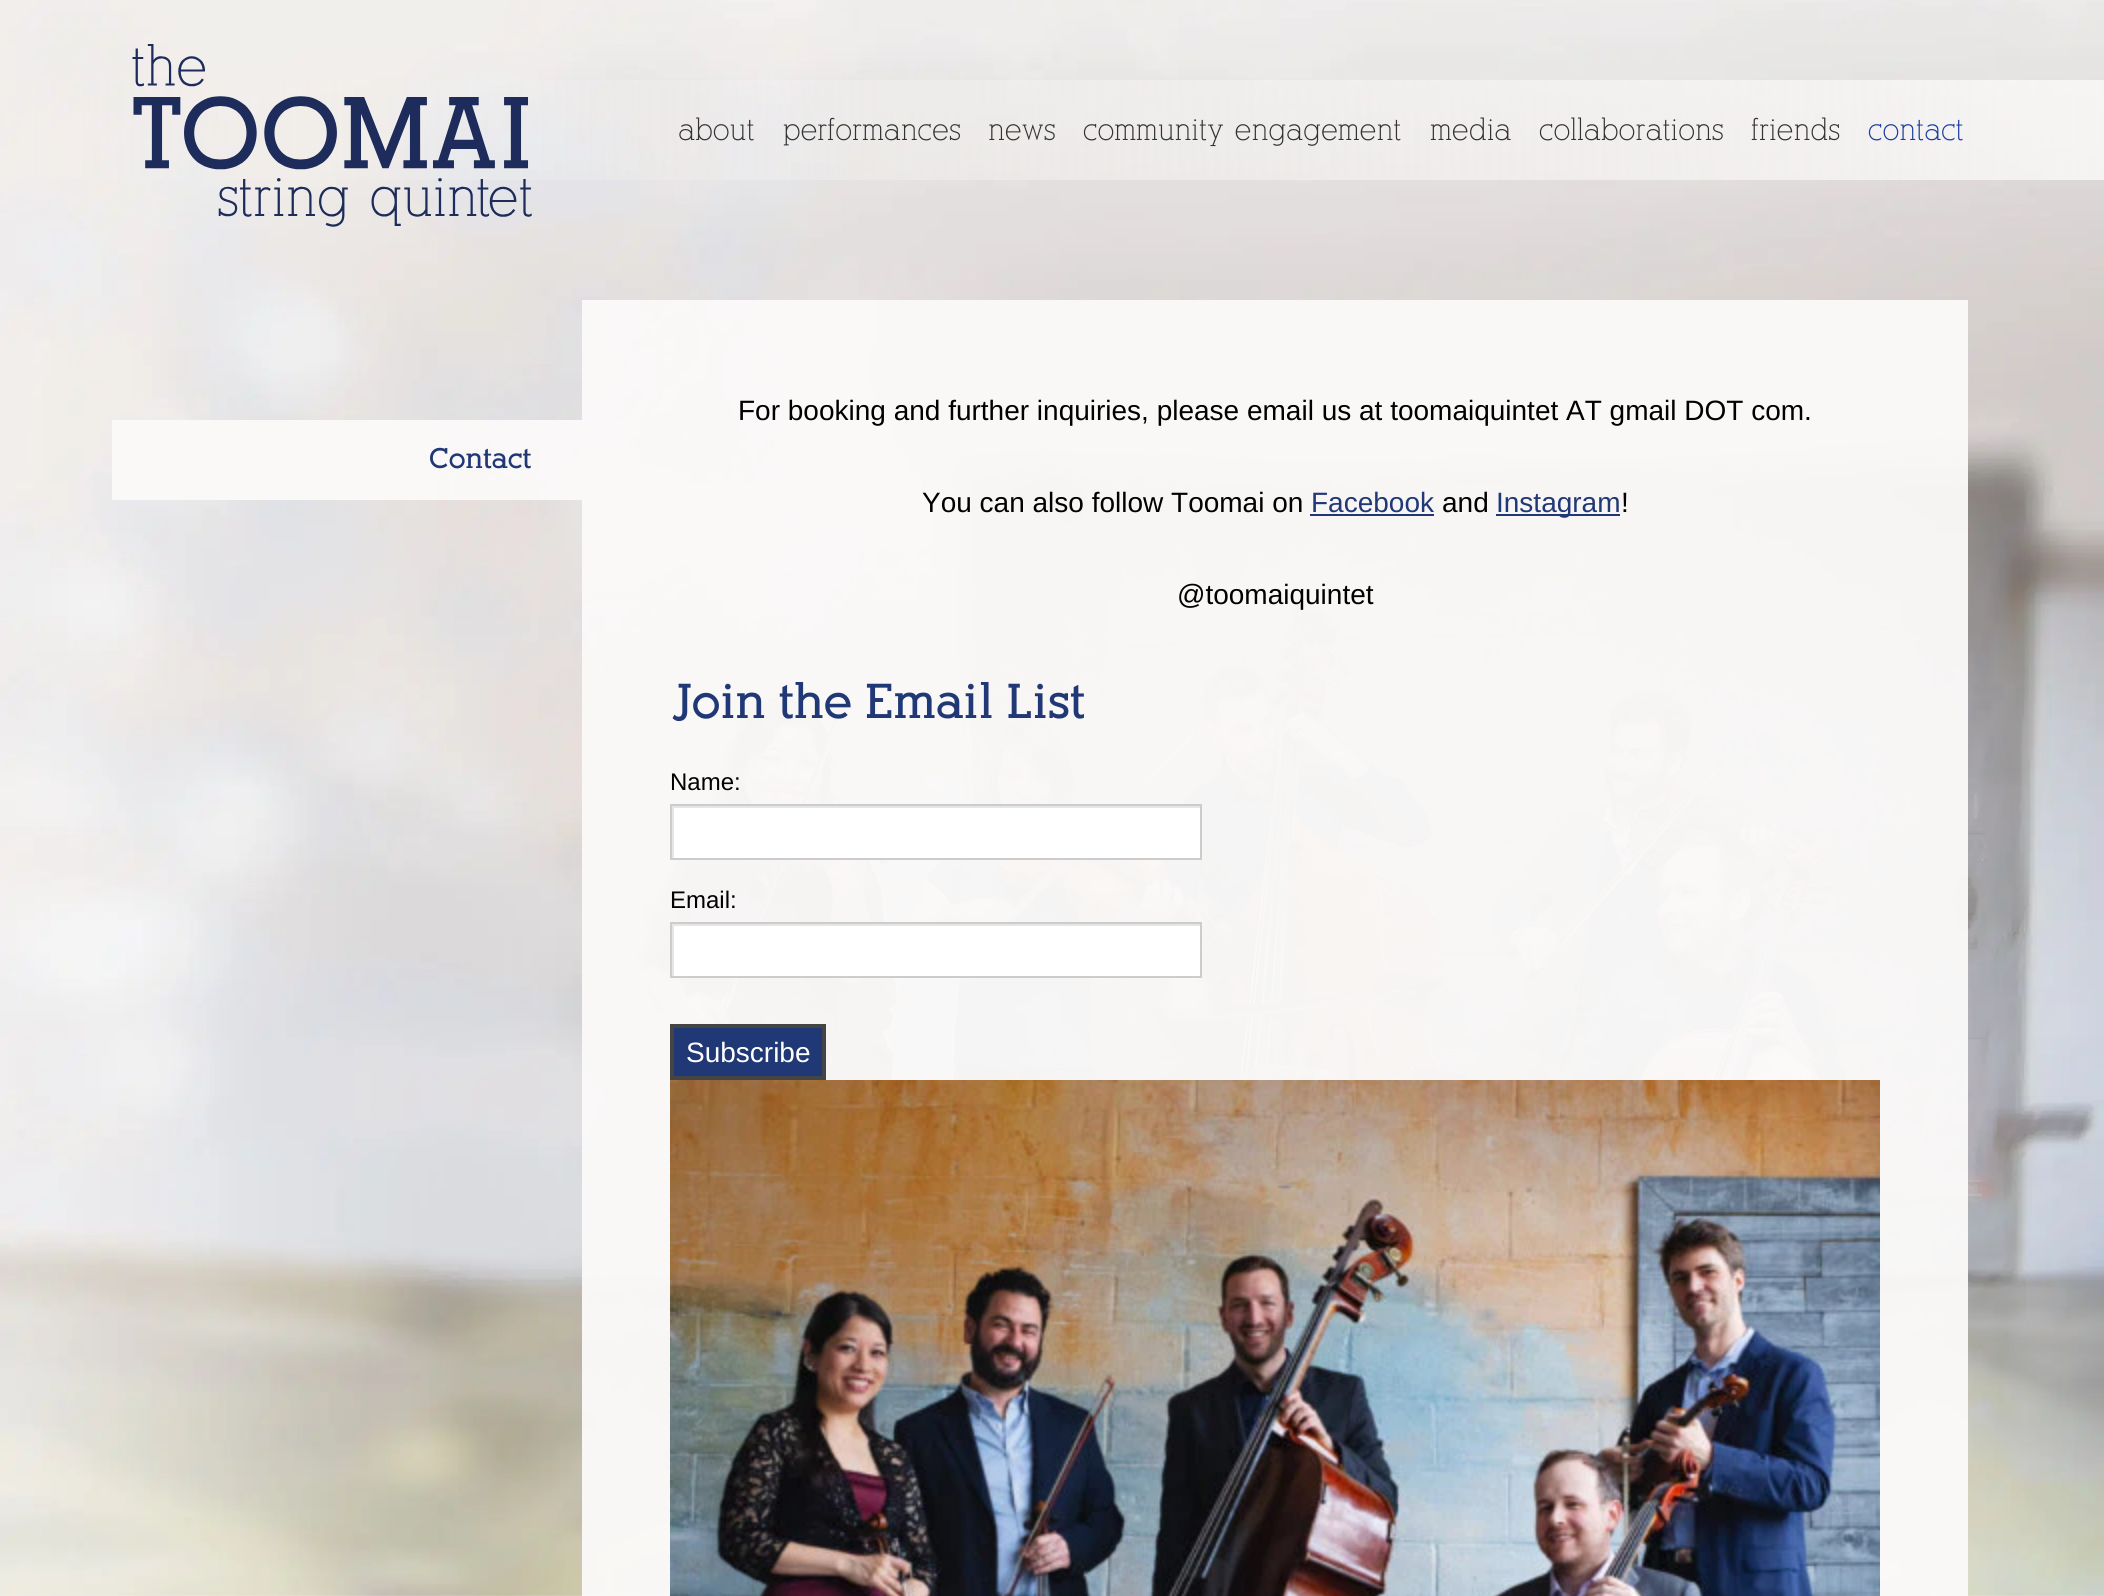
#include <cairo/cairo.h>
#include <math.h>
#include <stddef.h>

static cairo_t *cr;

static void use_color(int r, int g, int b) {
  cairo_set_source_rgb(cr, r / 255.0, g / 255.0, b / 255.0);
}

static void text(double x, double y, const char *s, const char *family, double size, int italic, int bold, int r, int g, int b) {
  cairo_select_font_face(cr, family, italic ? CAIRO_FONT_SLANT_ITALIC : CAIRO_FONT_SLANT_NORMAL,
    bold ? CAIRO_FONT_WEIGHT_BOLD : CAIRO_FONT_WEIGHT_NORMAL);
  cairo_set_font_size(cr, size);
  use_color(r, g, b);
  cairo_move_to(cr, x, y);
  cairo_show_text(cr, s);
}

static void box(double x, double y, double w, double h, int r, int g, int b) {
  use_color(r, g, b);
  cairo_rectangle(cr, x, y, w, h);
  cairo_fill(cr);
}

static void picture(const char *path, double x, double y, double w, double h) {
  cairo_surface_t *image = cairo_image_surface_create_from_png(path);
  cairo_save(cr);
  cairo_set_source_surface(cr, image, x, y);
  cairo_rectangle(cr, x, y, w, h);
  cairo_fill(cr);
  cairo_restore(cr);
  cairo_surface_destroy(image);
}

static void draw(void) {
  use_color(255, 255, 255);
  cairo_paint(cr);
  picture("img_01.png", 0, 0, 2104, 1596);
  picture("img_02.png", 132, 44, 400, 183);
  cairo_set_source_rgba(cr, 0.984, 0.98, 0.976, 0.95);
  cairo_rectangle(cr, 112, 420, 470, 80);
  cairo_fill(cr);
  cairo_rectangle(cr, 582, 300, 1386, 1296);
  cairo_fill(cr);
  box(1310, 514, 124, 2, 32, 56, 117);
  box(1496, 514, 124, 2, 32, 56, 117);
  box(674, 808, 526, 50, 255, 255, 255);
  cairo_save(cr);
  cairo_rectangle(cr, 672, 806, 528, 52);
  cairo_clip(cr);
  use_color(230, 230, 230);
  cairo_set_fill_rule(cr, CAIRO_FILL_RULE_EVEN_ODD);
  cairo_new_path(cr);
  cairo_move_to(cr, 474, 608);
  cairo_line_to(cr, 1398, 608);
  cairo_line_to(cr, 1398, 1056);
  cairo_line_to(cr, 474, 1056);
  cairo_close_path(cr);
  cairo_move_to(cr, 674, 808);
  cairo_line_to(cr, 1202, 808);
  cairo_line_to(cr, 1202, 860);
  cairo_line_to(cr, 674, 860);
  cairo_close_path(cr);
  cairo_fill(cr);
  cairo_restore(cr);
  cairo_rectangle(cr, 671, 805, 530, 54);
  use_color(204, 204, 204);
  cairo_stroke(cr);
  box(674, 926, 526, 50, 255, 255, 255);
  cairo_save(cr);
  cairo_rectangle(cr, 672, 924, 528, 52);
  cairo_clip(cr);
  use_color(230, 230, 230);
  cairo_set_fill_rule(cr, CAIRO_FILL_RULE_EVEN_ODD);
  cairo_new_path(cr);
  cairo_move_to(cr, 474, 726);
  cairo_line_to(cr, 1398, 726);
  cairo_line_to(cr, 1398, 1174);
  cairo_line_to(cr, 474, 1174);
  cairo_close_path(cr);
  cairo_move_to(cr, 674, 926);
  cairo_line_to(cr, 1202, 926);
  cairo_line_to(cr, 1202, 978);
  cairo_line_to(cr, 674, 978);
  cairo_close_path(cr);
  cairo_fill(cr);
  cairo_restore(cr);
  cairo_rectangle(cr, 671, 923, 530, 54);
  use_color(204, 204, 204);
  cairo_stroke(cr);
  use_color(32, 56, 117);
  cairo_rectangle(cr, 672, 1026, 152, 52);
  cairo_fill_preserve(cr);
  use_color(68, 68, 68);
  cairo_set_line_width(cr, 4);
  cairo_stroke(cr);
  picture("img_03.png", 670, 1080, 1210, 516);
  text(678, 140, "about", "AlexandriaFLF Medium", 30, 0, 0, 51, 51, 51);
  text(783, 140, "performances", "AlexandriaFLF Medium", 30, 0, 0, 51, 51, 51);
  text(988, 140, "news", "AlexandriaFLF Medium", 30, 0, 0, 51, 51, 51);
  text(1083, 140, "community engagement", "AlexandriaFLF Medium", 30, 0, 0, 51, 51, 51);
  text(1430, 140, "media", "AlexandriaFLF Medium", 30, 0, 0, 51, 51, 51);
  text(1539, 140, "collaborations", "AlexandriaFLF Medium", 30, 0, 0, 51, 51, 51);
  text(1751, 140, "friends", "AlexandriaFLF Medium", 30, 0, 0, 51, 51, 51);
  text(1868, 140, "contact", "AlexandriaFLF Medium", 30, 0, 0, 22, 61, 159);
  text(429, 468, "Contact", "AlexandriaFLF", 28, 0, 1, 32, 56, 117);
  text(738, 420, "For booking and further inquiries, please email us at toomaiquintet AT gmail DOT com.", "Liberation Sans", 28, 0, 0, 0, 0, 0);
  text(922, 512, "You can also follow Toomai on", "Liberation Sans", 28, 0, 0, 0, 0, 0);
  text(1311, 512, "Facebook", "Liberation Sans", 28, 0, 0, 32, 56, 117);
  text(1442, 512, "and", "Liberation Sans", 28, 0, 0, 0, 0, 0);
  text(1496, 512, "Instagram", "Liberation Sans", 28, 0, 0, 32, 56, 117);
  text(1621, 512, "!", "Liberation Sans", 28, 0, 0, 0, 0, 0);
  text(1177, 604, "@toomaiquintet", "Liberation Sans", 28, 0, 0, 0, 0, 0);
  text(670, 718, "Join the Email List", "AlexandriaFLF", 48, 0, 1, 32, 56, 117);
  text(670, 790, "Name:", "Liberation Sans", 24, 0, 0, 0, 0, 0);
  text(670, 908, "Email:", "Liberation Sans", 24, 0, 0, 0, 0, 0);
  text(686, 1062, "Subscribe", "Liberation Sans", 28, 0, 0, 255, 255, 255);
}

int main(void) {
  cairo_surface_t *surface = cairo_image_surface_create(CAIRO_FORMAT_RGB24, 2104, 1596);
  cr = cairo_create(surface);
  cairo_font_options_t *options = cairo_font_options_create();
  cairo_font_options_set_hint_metrics(options, CAIRO_HINT_METRICS_OFF);
  cairo_font_options_set_hint_style(options, CAIRO_HINT_STYLE_NONE);
  cairo_set_font_options(cr, options);
  cairo_set_miter_limit(cr, 4);
  draw();
  cairo_surface_write_to_png(surface, "out.png");
  cairo_font_options_destroy(options);
  cairo_destroy(cr);
  cairo_surface_destroy(surface);
  return 0;
}
